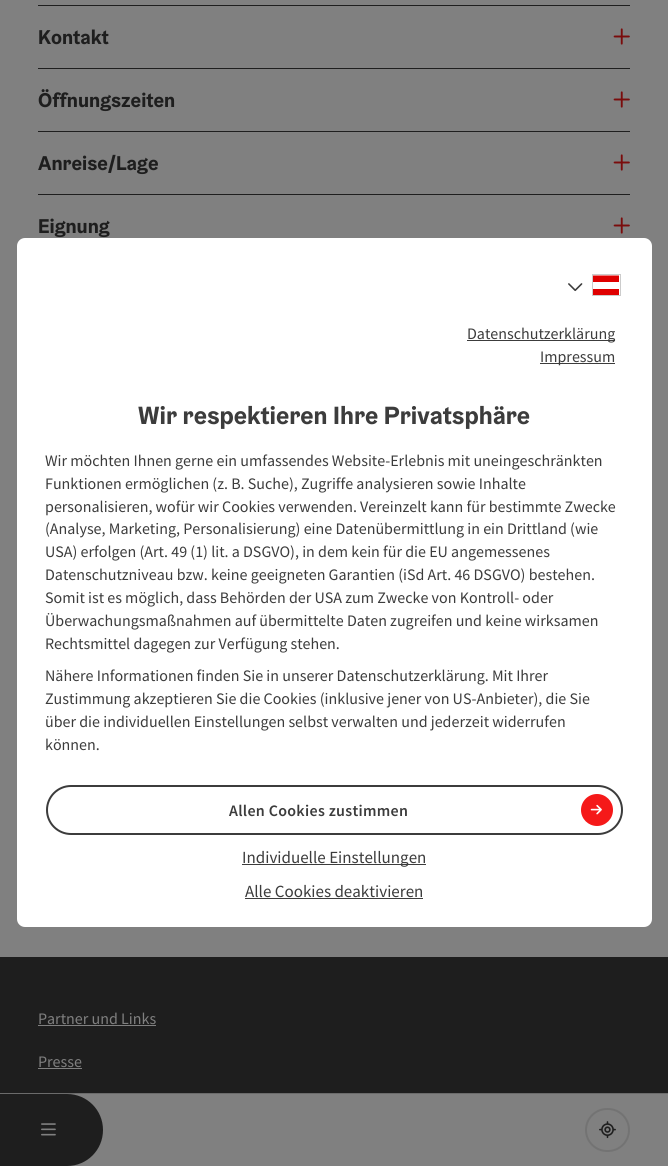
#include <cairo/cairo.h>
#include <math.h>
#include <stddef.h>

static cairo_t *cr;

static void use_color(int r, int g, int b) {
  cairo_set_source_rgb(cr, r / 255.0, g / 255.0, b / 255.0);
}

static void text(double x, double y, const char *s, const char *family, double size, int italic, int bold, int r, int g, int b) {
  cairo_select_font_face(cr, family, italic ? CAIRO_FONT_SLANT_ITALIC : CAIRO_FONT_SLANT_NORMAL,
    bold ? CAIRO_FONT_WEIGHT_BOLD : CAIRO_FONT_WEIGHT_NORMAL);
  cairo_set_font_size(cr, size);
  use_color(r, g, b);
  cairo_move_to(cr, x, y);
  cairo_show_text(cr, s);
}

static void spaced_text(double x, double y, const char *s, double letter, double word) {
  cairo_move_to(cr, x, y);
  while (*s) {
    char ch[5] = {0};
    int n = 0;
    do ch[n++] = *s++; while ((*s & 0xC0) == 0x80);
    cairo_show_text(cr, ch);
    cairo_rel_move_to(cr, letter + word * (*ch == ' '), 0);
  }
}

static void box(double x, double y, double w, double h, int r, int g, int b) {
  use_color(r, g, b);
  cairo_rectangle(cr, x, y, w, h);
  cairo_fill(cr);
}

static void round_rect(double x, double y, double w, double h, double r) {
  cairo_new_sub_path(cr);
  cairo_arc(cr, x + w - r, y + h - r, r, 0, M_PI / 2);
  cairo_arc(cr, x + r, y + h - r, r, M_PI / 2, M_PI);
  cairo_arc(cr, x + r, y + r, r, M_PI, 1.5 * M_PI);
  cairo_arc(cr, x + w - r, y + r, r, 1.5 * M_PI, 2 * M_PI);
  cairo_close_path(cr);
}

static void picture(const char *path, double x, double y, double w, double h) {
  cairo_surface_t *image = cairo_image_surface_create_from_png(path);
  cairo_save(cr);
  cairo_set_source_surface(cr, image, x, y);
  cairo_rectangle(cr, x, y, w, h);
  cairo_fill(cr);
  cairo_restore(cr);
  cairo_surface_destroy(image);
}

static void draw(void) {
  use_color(128, 128, 128);
  cairo_paint(cr);
  box(38, 5, 592, 1, 30, 30, 30);
  box(38, 68, 592, 1, 30, 30, 30);
  picture("img_01.png", 613, 28, 17, 17);
  box(38, 131, 592, 1, 30, 30, 30);
  picture("img_01.png", 613, 91, 17, 17);
  box(38, 194, 592, 1, 30, 30, 30);
  picture("img_01.png", 613, 154, 17, 17);
  picture("img_01.png", 613, 217, 17, 17);
  box(0, 957, 668, 136, 30, 30, 30);
  box(38, 1025, 118, 1, 128, 128, 128);
  box(38, 1068, 44, 1, 128, 128, 128);
  box(0, 1093, 668, 1, 107, 107, 107);
  use_color(30, 30, 30);
  cairo_new_path(cr);
  cairo_move_to(cr, 0, 1094);
  cairo_line_to(cr, 67, 1094);
  cairo_curve_to(cr, 87, 1094, 103, 1110, 103, 1130);
  cairo_curve_to(cr, 103, 1150, 87, 1166, 67, 1166);
  cairo_line_to(cr, 0, 1166);
  cairo_close_path(cr);
  cairo_fill(cr);
  picture("img_02.png", 41, 1123, 15, 13);
  round_rect(586, 1109, 43, 42, 21);
  use_color(115, 115, 115);
  cairo_stroke(cr);
  picture("img_03.png", 599, 1121, 17, 18);
  use_color(255, 255, 255);
  round_rect(17, 238, 635, 689, 8);
  cairo_fill(cr);
  picture("img_04.png", 568, 283, 15, 9);
  cairo_save(cr);
  cairo_rectangle(cr, 593, 275, 26, 20);
  cairo_clip(cr);
  use_color(223, 0, 0);
  cairo_set_fill_rule(cr, CAIRO_FILL_RULE_EVEN_ODD);
  cairo_new_path(cr);
  cairo_move_to(cr, 619.5, 295.5);
  cairo_line_to(cr, 592.5, 295.5);
  cairo_line_to(cr, 592.5, 289);
  cairo_line_to(cr, 619.5, 289);
  cairo_close_path(cr);
  cairo_move_to(cr, 619.5, 282);
  cairo_line_to(cr, 592.5, 282);
  cairo_line_to(cr, 592.5, 275.5);
  cairo_line_to(cr, 619.5, 275.5);
  cairo_close_path(cr);
  cairo_fill(cr);
  cairo_restore(cr);
  cairo_rectangle(cr, 592.5, 274.5, 28, 21);
  use_color(204, 204, 204);
  cairo_set_line_width(cr, 1);
  cairo_stroke(cr);
  box(467, 340, 148, 1, 60, 60, 60);
  box(540, 363, 75, 1, 60, 60, 60);
  round_rect(47, 786, 575, 48, 24);
  cairo_set_line_width(cr, 2);
  cairo_stroke(cr);
  use_color(245, 25, 25);
  cairo_arc(cr, 597, 810, 16, 0, 2 * M_PI);
  cairo_fill(cr);
  picture("img_05.png", 590, 804, 12, 11);
  box(242, 864, 184, 1, 60, 60, 60);
  box(245, 898, 178, 1, 60, 60, 60);
  text(38, 44, "Kontakt", "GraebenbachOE", 20, 0, 1, 30, 30, 30);
  text(38, 107, "Öffnungszeiten", "GraebenbachOE", 20, 0, 1, 30, 30, 30);
  text(38, 170, "Anreise/Lage", "GraebenbachOE", 20, 0, 1, 30, 30, 30);
  text(38, 233, "Eignung", "GraebenbachOE", 20, 0, 1, 30, 30, 30);
  text(38, 1024, "Partner und Links", "Source Sans Pro", 16, 0, 0, 128, 128, 128);
  text(38, 1067, "Presse", "Source Sans Pro", 16, 0, 0, 128, 128, 128);
  text(467, 339, "Datenschutzerklärung", "Source Sans Pro", 16, 0, 0, 60, 60, 60);
  text(540, 362, "Impressum", "Source Sans Pro", 16, 0, 0, 60, 60, 60);
  text(138, 424, "Wir respektieren Ihre Privatsphäre", "GraebenbachOE", 25, 0, 1, 60, 60, 60);
  text(45, 466, "Wir möchten Ihnen gerne ein umfassendes Website-Erlebnis mit uneingeschränkten", "Source Sans Pro", 16, 0, 0, 60, 60, 60);
  text(45, 489, "Funktionen ermöglichen (z. B. Suche), Zugriffe analysieren sowie Inhalte", "Source Sans Pro", 16, 0, 0, 60, 60, 60);
  text(45, 512, "personalisieren, wofür wir Cookies verwenden. Vereinzelt kann für bestimmte Zwecke", "Source Sans Pro", 16, 0, 0, 60, 60, 60);
  text(45, 534, "(Analyse, Marketing, Personalisierung) eine Datenübermittlung in ein Drittland (wie", "Source Sans Pro", 16, 0, 0, 60, 60, 60);
  text(45, 557, "USA) erfolgen (Art. 49 (1) lit. a DSGVO), in dem kein für die EU angemessenes", "Source Sans Pro", 16, 0, 0, 60, 60, 60);
  text(45, 580, "Datenschutzniveau bzw. keine geeigneten Garantien (iSd Art. 46 DSGVO) bestehen.", "Source Sans Pro", 16, 0, 0, 60, 60, 60);
  text(45, 603, "Somit ist es möglich, dass Behörden der USA zum Zwecke von Kontroll- oder", "Source Sans Pro", 16, 0, 0, 60, 60, 60);
  text(45, 626, "Überwachungsmaßnahmen auf übermittelte Daten zugreifen und keine wirksamen", "Source Sans Pro", 16, 0, 0, 60, 60, 60);
  text(45, 649, "Rechtsmittel dagegen zur Verfügung stehen.", "Source Sans Pro", 16, 0, 0, 60, 60, 60);
  text(45, 681, "Nähere Informationen finden Sie in unserer Datenschutzerklärung. Mit Ihrer", "Source Sans Pro", 16, 0, 0, 60, 60, 60);
  text(45, 704, "Zustimmung akzeptieren Sie die Cookies (inklusive jener von US-Anbieter), die Sie", "Source Sans Pro", 16, 0, 0, 60, 60, 60);
  text(45, 727, "über die individuellen Einstellungen selbst verwalten und jederzeit widerrufen", "Source Sans Pro", 16, 0, 0, 60, 60, 60);
  text(45, 750, "können.", "Source Sans Pro", 16, 0, 0, 60, 60, 60);
  cairo_select_font_face(cr, "Source Sans Pro SemiBold", CAIRO_FONT_SLANT_NORMAL, CAIRO_FONT_WEIGHT_NORMAL);
  spaced_text(229, 816, "Allen Cookies zustimmen", 0.3, 0);
  text(242, 863, "Individuelle Einstellungen", "Source Sans Pro", 17, 0, 0, 60, 60, 60);
  text(245, 897, "Alle Cookies deaktivieren", "Source Sans Pro", 17, 0, 0, 60, 60, 60);
}

int main(void) {
  cairo_surface_t *surface = cairo_image_surface_create(CAIRO_FORMAT_RGB24, 668, 1166);
  cr = cairo_create(surface);
  cairo_font_options_t *options = cairo_font_options_create();
  cairo_font_options_set_hint_metrics(options, CAIRO_HINT_METRICS_OFF);
  cairo_font_options_set_hint_style(options, CAIRO_HINT_STYLE_NONE);
  cairo_set_font_options(cr, options);
  cairo_set_miter_limit(cr, 4);
  draw();
  cairo_surface_write_to_png(surface, "out.png");
  cairo_font_options_destroy(options);
  cairo_destroy(cr);
  cairo_surface_destroy(surface);
  return 0;
}
